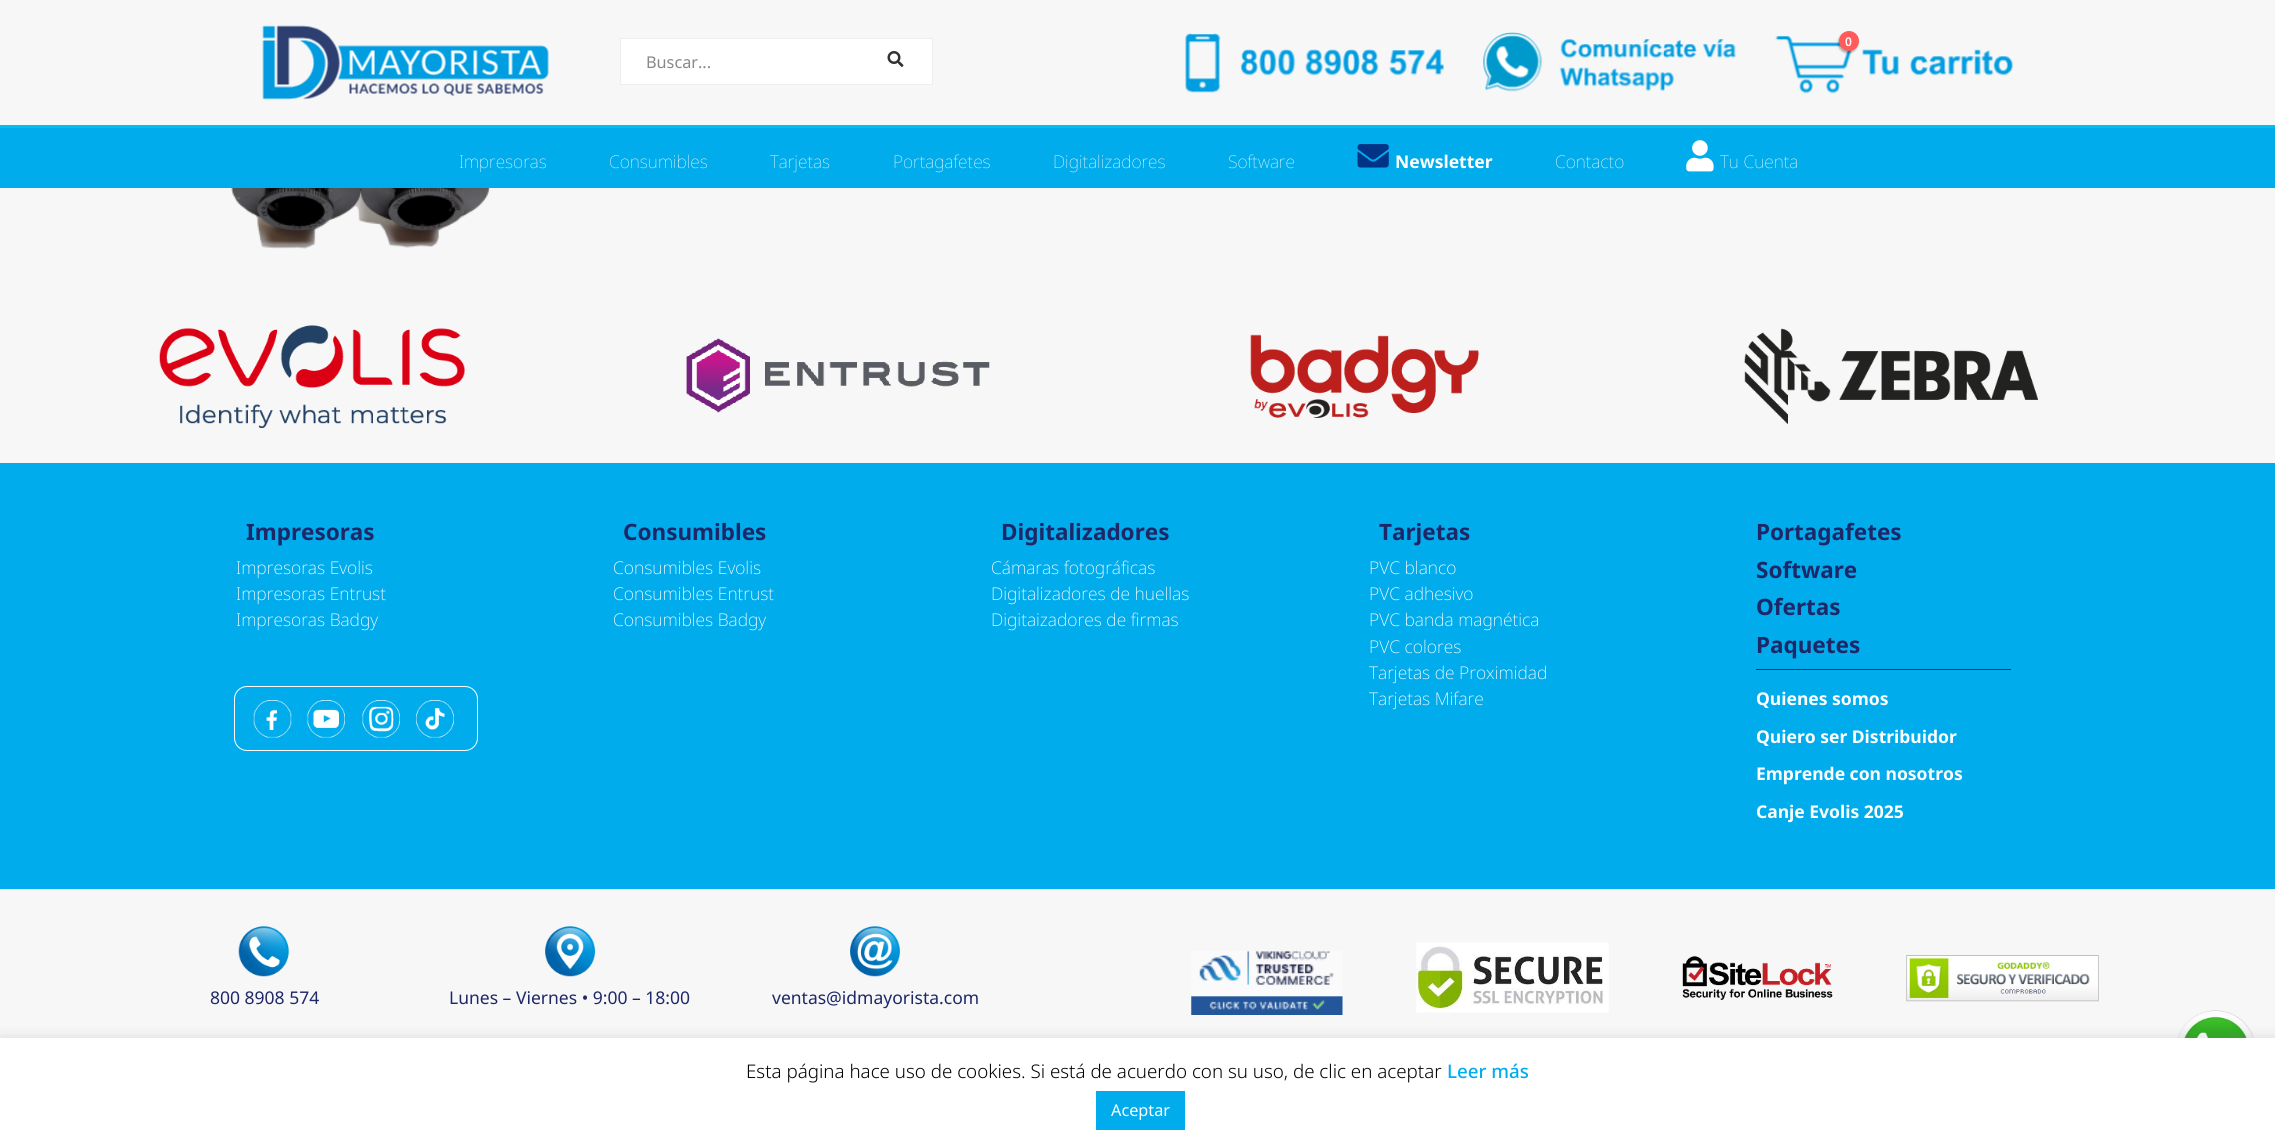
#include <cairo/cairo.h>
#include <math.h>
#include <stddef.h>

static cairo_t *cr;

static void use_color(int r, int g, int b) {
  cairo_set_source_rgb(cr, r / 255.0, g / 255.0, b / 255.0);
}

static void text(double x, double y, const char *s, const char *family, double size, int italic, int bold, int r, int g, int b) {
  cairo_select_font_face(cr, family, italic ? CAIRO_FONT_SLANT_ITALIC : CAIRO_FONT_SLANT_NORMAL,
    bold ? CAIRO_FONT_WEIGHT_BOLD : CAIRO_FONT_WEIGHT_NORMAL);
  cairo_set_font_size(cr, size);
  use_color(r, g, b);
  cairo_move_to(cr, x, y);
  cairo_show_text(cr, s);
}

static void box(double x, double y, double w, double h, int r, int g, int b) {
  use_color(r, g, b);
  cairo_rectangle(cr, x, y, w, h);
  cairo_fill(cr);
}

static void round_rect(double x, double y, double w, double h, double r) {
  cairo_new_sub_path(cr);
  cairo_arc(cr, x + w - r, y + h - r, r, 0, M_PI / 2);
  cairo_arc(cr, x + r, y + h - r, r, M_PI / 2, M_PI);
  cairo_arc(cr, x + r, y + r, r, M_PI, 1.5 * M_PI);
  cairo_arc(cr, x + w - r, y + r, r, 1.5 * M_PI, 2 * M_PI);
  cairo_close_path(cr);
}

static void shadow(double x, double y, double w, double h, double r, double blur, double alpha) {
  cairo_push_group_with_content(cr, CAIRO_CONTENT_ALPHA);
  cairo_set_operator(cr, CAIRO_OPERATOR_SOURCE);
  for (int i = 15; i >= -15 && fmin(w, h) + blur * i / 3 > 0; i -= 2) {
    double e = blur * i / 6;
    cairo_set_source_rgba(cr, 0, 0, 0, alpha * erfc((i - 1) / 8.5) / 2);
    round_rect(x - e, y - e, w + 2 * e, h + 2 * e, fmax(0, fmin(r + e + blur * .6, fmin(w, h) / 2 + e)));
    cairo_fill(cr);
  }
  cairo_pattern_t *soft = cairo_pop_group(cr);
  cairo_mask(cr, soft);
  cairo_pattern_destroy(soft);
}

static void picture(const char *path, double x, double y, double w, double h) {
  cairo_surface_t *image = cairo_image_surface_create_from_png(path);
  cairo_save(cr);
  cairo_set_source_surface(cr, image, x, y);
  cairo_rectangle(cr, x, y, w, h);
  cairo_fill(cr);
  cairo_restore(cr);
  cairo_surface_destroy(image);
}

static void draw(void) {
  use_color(247, 247, 247);
  cairo_paint(cr);
  picture("img_01.png", 262, 25, 287, 75);
  picture("img_02.png", 1185, 33, 259, 60);
  picture("img_03.png", 1483, 32, 253, 60);
  picture("img_04.png", 1775, 36, 238, 58);
  use_color(0, 0, 0);
  shadow(1838, 33, 20, 20, 10, 1, 0.3);
  use_color(255, 91, 91);
  cairo_arc(cr, 1849, 41, 10, 0, 2 * M_PI);
  cairo_fill(cr);
  use_color(255, 255, 255);
  cairo_rectangle(cr, 620.5, 38.5, 312, 46);
  cairo_fill_preserve(cr);
  use_color(238, 238, 238);
  cairo_set_line_width(cr, 1);
  cairo_stroke(cr);
  picture("img_05.png", 887, 51, 17, 16);
  box(0, 128, 2275, 60, 0, 172, 236);
  box(0, 125, 2275, 3, 0, 191, 240);
  picture("img_06.png", 1357, 144, 32, 24);
  picture("img_07.png", 1686, 140, 28, 32);
  picture("img_08.png", 2177, 1010, 77, 28);
  picture("img_09.png", 231, 188, 260, 61);
  picture("img_10.png", 159, 325, 306, 103);
  picture("img_11.png", 686, 338, 304, 75);
  picture("img_12.png", 1250, 334, 229, 84);
  picture("img_13.png", 1744, 328, 294, 96);
  box(0, 463, 2275, 426, 0, 172, 236);
  round_rect(234.5, 686.5, 243, 64, 12.5);
  use_color(255, 255, 255);
  cairo_stroke(cr);
  picture("img_14.png", 253, 700, 39, 38);
  picture("img_15.png", 307, 700, 38, 38);
  picture("img_16.png", 362, 700, 38, 38);
  picture("img_17.png", 416, 700, 38, 38);
  box(1756, 669, 255, 1, 30, 40, 104);
  picture("img_18.png", 238, 926, 51, 51);
  picture("img_19.png", 545, 926, 50, 51);
  picture("img_20.png", 850, 926, 50, 51);
  picture("img_21.png", 1191, 951, 152, 64);
  picture("img_22.png", 1416, 942, 193, 71);
  picture("img_23.png", 1682, 956, 151, 44);
  picture("img_24.png", 1906, 955, 193, 47);
  use_color(172, 171, 171);
  shadow(0, 1036, 2275, 108, 0, 6, 0.3);
  box(0, 1038, 2275, 106, 255, 255, 255);
  box(1096, 1091, 89, 39, 0, 172, 236);
  text(1845, 46, "0", "Noto Sans SemiBold", 12, 0, 0, 255, 255, 255);
  text(646, 68, "Buscar...", "Noto Sans", 16.25, 0, 0, 136, 136, 136);
  text(459, 168, "Impresoras", "Noto Sans Thin", 17.5, 0, 0, 255, 255, 255);
  text(609, 168, "Consumibles", "Noto Sans Thin", 17.5, 0, 0, 255, 255, 255);
  text(770, 168, "Tarjetas", "Noto Sans Thin", 17.5, 0, 0, 255, 255, 255);
  text(893, 168, "Portagafetes", "Noto Sans Thin", 17.5, 0, 0, 255, 255, 255);
  text(1053, 168, "Digitalizadores", "Noto Sans Thin", 17.5, 0, 0, 255, 255, 255);
  text(1228, 168, "Software", "Noto Sans Thin", 17.5, 0, 0, 255, 255, 255);
  text(1395, 168, "Newsletter", "Noto Sans", 17.5, 0, 1, 255, 255, 255);
  text(1555, 168, "Contacto", "Noto Sans Thin", 17.5, 0, 0, 255, 255, 255);
  text(1720, 168, "Tu Cuenta", "Noto Sans Thin", 17.5, 0, 0, 255, 255, 255);
  text(246, 540, "Impresoras", "Noto Sans", 22.5, 0, 1, 30, 40, 104);
  text(236, 574, "Impresoras Evolis", "Noto Sans ExtraLight", 17.5, 0, 0, 255, 255, 255);
  text(236, 600, "Impresoras Entrust", "Noto Sans ExtraLight", 17.5, 0, 0, 255, 255, 255);
  text(236, 626, "Impresoras Badgy", "Noto Sans ExtraLight", 17.5, 0, 0, 255, 255, 255);
  text(623, 540, "Consumibles", "Noto Sans", 22.5, 0, 1, 30, 40, 104);
  text(613, 574, "Consumibles Evolis", "Noto Sans ExtraLight", 17.5, 0, 0, 255, 255, 255);
  text(613, 600, "Consumibles Entrust", "Noto Sans ExtraLight", 17.5, 0, 0, 255, 255, 255);
  text(613, 626, "Consumibles Badgy", "Noto Sans ExtraLight", 17.5, 0, 0, 255, 255, 255);
  text(1001, 540, "Digitalizadores", "Noto Sans", 22.5, 0, 1, 30, 40, 104);
  text(991, 574, "Cámaras fotográficas", "Noto Sans ExtraLight", 17.5, 0, 0, 255, 255, 255);
  text(991, 600, "Digitalizadores de huellas", "Noto Sans ExtraLight", 17.5, 0, 0, 255, 255, 255);
  text(991, 626, "Digitaizadores de firmas", "Noto Sans ExtraLight", 17.5, 0, 0, 255, 255, 255);
  text(1379, 540, "Tarjetas", "Noto Sans", 22.5, 0, 1, 30, 40, 104);
  text(1369, 574, "PVC blanco", "Noto Sans ExtraLight", 17.5, 0, 0, 255, 255, 255);
  text(1369, 600, "PVC adhesivo", "Noto Sans ExtraLight", 17.5, 0, 0, 255, 255, 255);
  text(1369, 626, "PVC banda magnética", "Noto Sans ExtraLight", 17.5, 0, 0, 255, 255, 255);
  text(1369, 653, "PVC colores", "Noto Sans ExtraLight", 17.5, 0, 0, 255, 255, 255);
  text(1369, 679, "Tarjetas de Proximidad", "Noto Sans ExtraLight", 17.5, 0, 0, 255, 255, 255);
  text(1369, 705, "Tarjetas Mifare", "Noto Sans ExtraLight", 17.5, 0, 0, 255, 255, 255);
  text(1756, 540, "Portagafetes", "Noto Sans", 22.5, 0, 1, 30, 40, 104);
  text(1756, 578, "Software", "Noto Sans", 22.5, 0, 1, 30, 40, 104);
  text(1756, 615, "Ofertas", "Noto Sans", 22.5, 0, 1, 30, 40, 104);
  text(1756, 653, "Paquetes", "Noto Sans", 22.5, 0, 1, 30, 40, 104);
  text(1756, 705, "Quienes somos", "Noto Sans", 17.5, 0, 1, 255, 255, 255);
  text(1756, 743, "Quiero ser Distribuidor", "Noto Sans", 17.5, 0, 1, 255, 255, 255);
  text(1756, 780, "Emprende con nosotros", "Noto Sans", 17.5, 0, 1, 255, 255, 255);
  text(1756, 818, "Canje Evolis 2025", "Noto Sans", 17.5, 0, 1, 255, 255, 255);
  text(210, 1004, "800 8908 574", "Noto Sans", 17.5, 0, 0, 30, 40, 104);
  text(449, 1004, "Lunes – Viernes • 9:00 – 18:00", "Noto Sans", 17.5, 0, 0, 30, 40, 104);
  text(772, 1004, "ventas@idmayorista.com", "Noto Sans", 17.5, 0, 0, 30, 40, 104);
  text(746, 1078, "Esta página hace uso de cookies. Si está de acuerdo con su uso, de clic en aceptar", "Noto Sans Light", 18.75, 0, 0, 0, 0, 0);
  text(1447, 1078, "Leer más", "Noto Sans Medium", 18.75, 0, 0, 0, 172, 236);
  text(1111, 1116, "Aceptar", "Noto Sans", 16.25, 0, 0, 255, 255, 255);
}

int main(void) {
  cairo_surface_t *surface = cairo_image_surface_create(CAIRO_FORMAT_RGB24, 2275, 1144);
  cr = cairo_create(surface);
  cairo_font_options_t *options = cairo_font_options_create();
  cairo_font_options_set_hint_metrics(options, CAIRO_HINT_METRICS_OFF);
  cairo_font_options_set_hint_style(options, CAIRO_HINT_STYLE_NONE);
  cairo_set_font_options(cr, options);
  cairo_set_miter_limit(cr, 4);
  draw();
  cairo_surface_write_to_png(surface, "out.png");
  cairo_font_options_destroy(options);
  cairo_destroy(cr);
  cairo_surface_destroy(surface);
  return 0;
}
